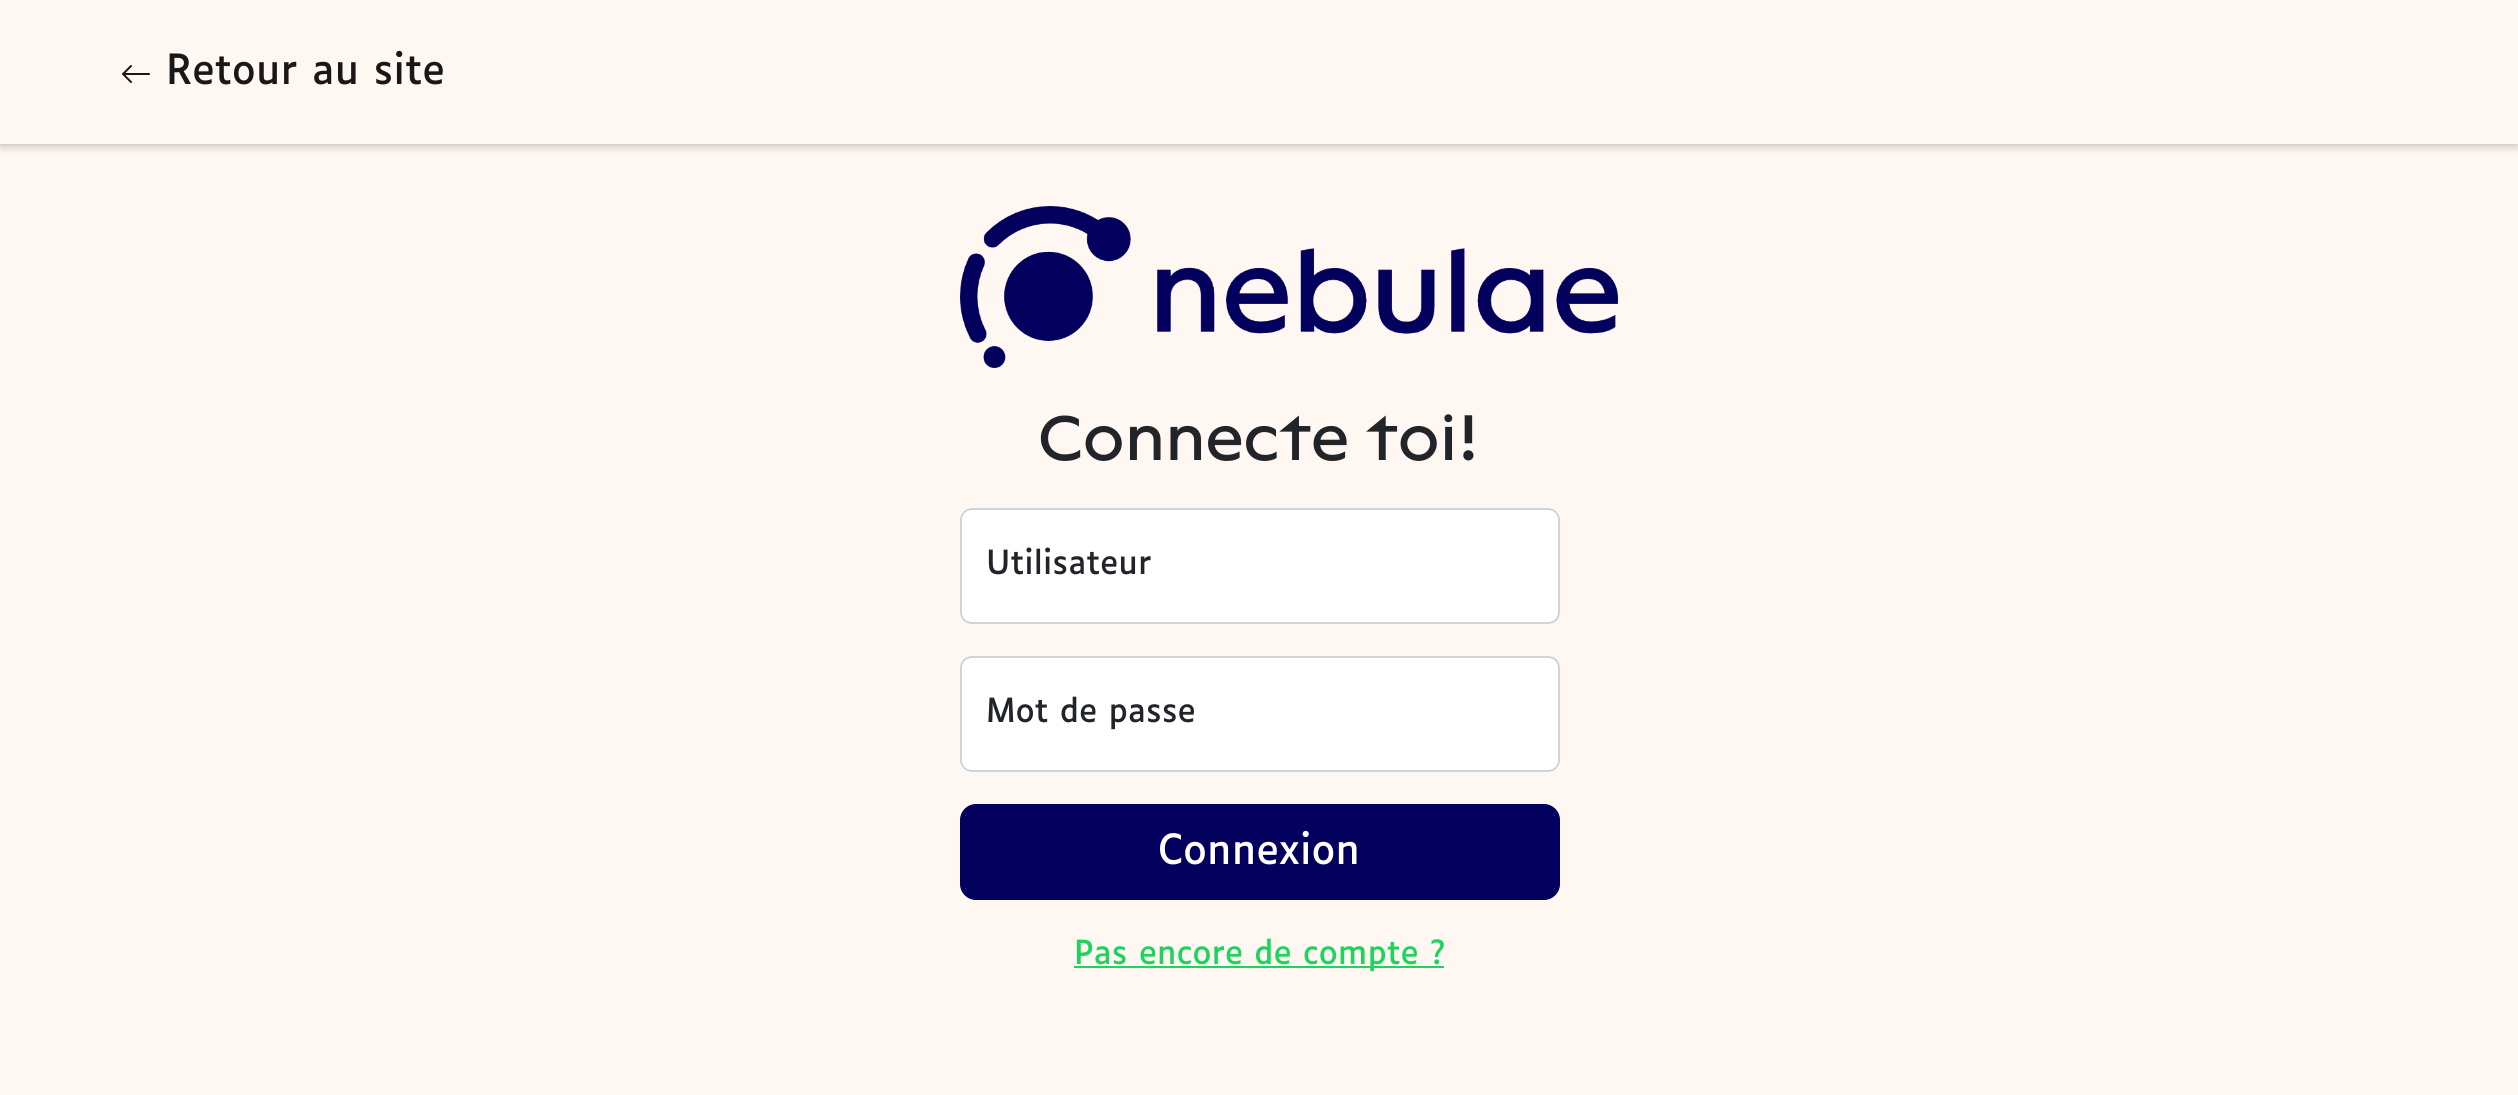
#include <cairo/cairo.h>
#include <math.h>
#include <stddef.h>

static cairo_t *cr;

static void use_color(int r, int g, int b) {
  cairo_set_source_rgb(cr, r / 255.0, g / 255.0, b / 255.0);
}

static void text(double x, double y, const char *s, const char *family, double size, int italic, int bold, int r, int g, int b) {
  cairo_select_font_face(cr, family, italic ? CAIRO_FONT_SLANT_ITALIC : CAIRO_FONT_SLANT_NORMAL,
    bold ? CAIRO_FONT_WEIGHT_BOLD : CAIRO_FONT_WEIGHT_NORMAL);
  cairo_set_font_size(cr, size);
  use_color(r, g, b);
  cairo_move_to(cr, x, y);
  cairo_show_text(cr, s);
}

static void box(double x, double y, double w, double h, int r, int g, int b) {
  use_color(r, g, b);
  cairo_rectangle(cr, x, y, w, h);
  cairo_fill(cr);
}

static void round_rect(double x, double y, double w, double h, double r) {
  cairo_new_sub_path(cr);
  cairo_arc(cr, x + w - r, y + h - r, r, 0, M_PI / 2);
  cairo_arc(cr, x + r, y + h - r, r, M_PI / 2, M_PI);
  cairo_arc(cr, x + r, y + r, r, M_PI, 1.5 * M_PI);
  cairo_arc(cr, x + w - r, y + r, r, 1.5 * M_PI, 2 * M_PI);
  cairo_close_path(cr);
}

static void shadow(double x, double y, double w, double h, double r, double blur, double alpha) {
  cairo_push_group_with_content(cr, CAIRO_CONTENT_ALPHA);
  cairo_set_operator(cr, CAIRO_OPERATOR_SOURCE);
  for (int i = 15; i >= -15 && fmin(w, h) + blur * i / 3 > 0; i -= 2) {
    double e = blur * i / 6;
    cairo_set_source_rgba(cr, 0, 0, 0, alpha * erfc((i - 1) / 8.5) / 2);
    round_rect(x - e, y - e, w + 2 * e, h + 2 * e, fmax(0, fmin(r + e + blur * .6, fmin(w, h) / 2 + e)));
    cairo_fill(cr);
  }
  cairo_pattern_t *soft = cairo_pop_group(cr);
  cairo_mask(cr, soft);
  cairo_pattern_destroy(soft);
}

static void picture(const char *path, double x, double y, double w, double h) {
  cairo_surface_t *image = cairo_image_surface_create_from_png(path);
  cairo_save(cr);
  cairo_set_source_surface(cr, image, x, y);
  cairo_rectangle(cr, x, y, w, h);
  cairo_fill(cr);
  cairo_restore(cr);
  cairo_surface_destroy(image);
}

static void draw(void) {
  use_color(255, 248, 242);
  cairo_paint(cr);
  cairo_save(cr);
  cairo_rectangle(cr, 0, 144, 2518, 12);
  cairo_clip(cr);
  use_color(189, 189, 189);
  shadow(0, 2, 2518, 144, 0, 5, 1);
  cairo_restore(cr);
  picture("img_01.png", 122, 65, 28, 18);
  picture("img_02.png", 169, 50, 274, 35);
  picture("img_03.png", 960, 206, 658, 162);
  use_color(255, 255, 255);
  round_rect(961, 509, 598, 114, 11);
  cairo_fill_preserve(cr);
  use_color(206, 212, 218);
  cairo_stroke(cr);
  picture("img_04.png", 988, 547, 163, 28);
  use_color(255, 255, 255);
  round_rect(961, 657, 598, 114, 11);
  cairo_fill_preserve(cr);
  use_color(206, 212, 218);
  cairo_stroke(cr);
  picture("img_05.png", 988, 696, 206, 34);
  use_color(2, 0, 92);
  round_rect(961, 805, 598, 94, 15);
  cairo_fill_preserve(cr);
  cairo_stroke(cr);
  picture("img_06.png", 1160, 830, 197, 35);
  box(1074, 966, 370, 2, 30, 212, 93);
  picture("img_07.png", 1076, 938, 368, 34);
  text(1038, 460, "Connecte toi!", "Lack", 64, 0, 0, 33, 37, 41);
}

int main(void) {
  cairo_surface_t *surface = cairo_image_surface_create(CAIRO_FORMAT_RGB24, 2518, 1095);
  cr = cairo_create(surface);
  cairo_font_options_t *options = cairo_font_options_create();
  cairo_font_options_set_hint_metrics(options, CAIRO_HINT_METRICS_OFF);
  cairo_font_options_set_hint_style(options, CAIRO_HINT_STYLE_NONE);
  cairo_set_font_options(cr, options);
  cairo_set_miter_limit(cr, 4);
  draw();
  cairo_surface_write_to_png(surface, "out.png");
  cairo_font_options_destroy(options);
  cairo_destroy(cr);
  cairo_surface_destroy(surface);
  return 0;
}
